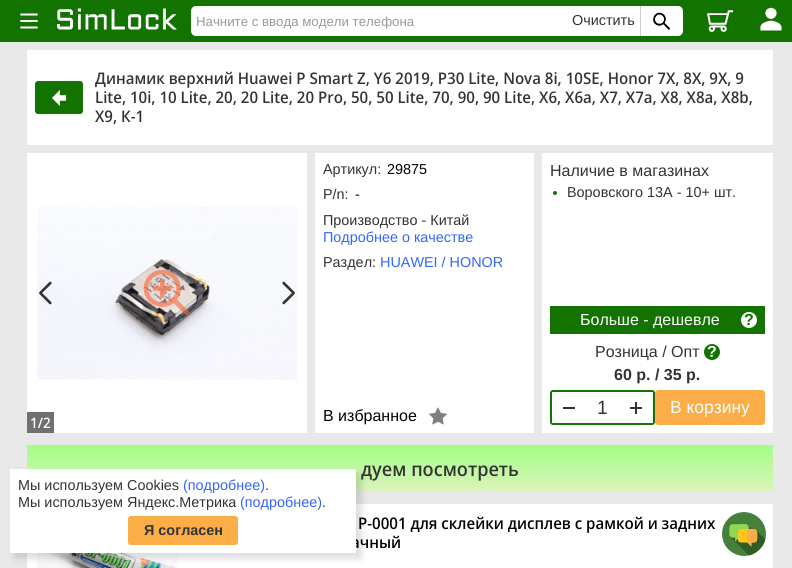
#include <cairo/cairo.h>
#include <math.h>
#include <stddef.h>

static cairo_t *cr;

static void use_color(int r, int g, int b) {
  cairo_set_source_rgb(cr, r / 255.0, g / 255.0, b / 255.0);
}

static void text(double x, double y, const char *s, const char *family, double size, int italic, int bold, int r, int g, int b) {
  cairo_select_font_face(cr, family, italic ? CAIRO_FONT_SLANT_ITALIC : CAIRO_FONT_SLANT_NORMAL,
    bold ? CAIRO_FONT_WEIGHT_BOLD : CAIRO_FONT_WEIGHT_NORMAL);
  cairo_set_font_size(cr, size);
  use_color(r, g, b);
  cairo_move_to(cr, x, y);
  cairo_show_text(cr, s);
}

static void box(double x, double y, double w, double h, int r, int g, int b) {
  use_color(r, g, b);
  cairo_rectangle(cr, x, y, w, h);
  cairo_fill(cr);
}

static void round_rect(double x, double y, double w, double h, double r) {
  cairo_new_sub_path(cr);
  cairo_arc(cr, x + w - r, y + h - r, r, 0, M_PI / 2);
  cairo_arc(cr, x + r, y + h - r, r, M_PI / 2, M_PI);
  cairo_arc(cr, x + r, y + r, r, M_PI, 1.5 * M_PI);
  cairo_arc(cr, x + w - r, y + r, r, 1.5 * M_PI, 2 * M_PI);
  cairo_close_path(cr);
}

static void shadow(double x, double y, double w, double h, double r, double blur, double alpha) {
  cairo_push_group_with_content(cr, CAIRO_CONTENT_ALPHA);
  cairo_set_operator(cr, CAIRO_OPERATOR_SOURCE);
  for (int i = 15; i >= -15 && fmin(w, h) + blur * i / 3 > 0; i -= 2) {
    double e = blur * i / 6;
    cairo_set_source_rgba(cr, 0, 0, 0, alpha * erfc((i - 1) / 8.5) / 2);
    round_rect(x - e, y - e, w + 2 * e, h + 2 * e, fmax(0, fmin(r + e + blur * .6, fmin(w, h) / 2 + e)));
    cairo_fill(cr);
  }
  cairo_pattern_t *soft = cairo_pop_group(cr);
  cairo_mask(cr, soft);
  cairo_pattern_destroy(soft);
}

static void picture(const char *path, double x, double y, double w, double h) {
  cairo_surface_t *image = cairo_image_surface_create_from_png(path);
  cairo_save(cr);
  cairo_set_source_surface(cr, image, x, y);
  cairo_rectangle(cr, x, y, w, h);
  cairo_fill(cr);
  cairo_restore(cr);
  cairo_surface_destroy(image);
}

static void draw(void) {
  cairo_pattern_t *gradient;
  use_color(232, 232, 232);
  cairo_paint(cr);
  box(0, 0, 792, 42, 18, 115, 0);
  picture("img_01.png", 20, 13, 18, 16);
  picture("img_02.png", 57, 8, 120, 22);
  use_color(255, 255, 255);
  round_rect(191, 6, 492, 30, 5);
  cairo_fill(cr);
  box(640, 6, 1, 30, 205, 205, 205);
  picture("img_03.png", 653, 12, 18, 18);
  picture("img_04.png", 707, 10, 26, 22);
  picture("img_05.png", 760, 7, 22, 24);
  box(27, 50, 746, 95, 255, 255, 255);
  use_color(18, 115, 0);
  round_rect(35, 81, 48, 33, 3);
  cairo_fill(cr);
  picture("img_06.png", 52, 90, 15, 16);
  box(315, 153, 219, 280, 255, 255, 255);
  picture("img_07.png", 429, 407, 18, 18);
  box(542, 153, 231, 280, 255, 255, 255);
  use_color(18, 115, 0);
  cairo_arc(cr, 555, 193, 2, 0, 2 * M_PI);
  cairo_fill(cr);
  box(550, 306, 215, 28, 18, 115, 0);
  use_color(255, 255, 255);
  cairo_arc(cr, 749, 320, 8, 0, 2 * M_PI);
  cairo_fill(cr);
  use_color(18, 115, 0);
  cairo_arc(cr, 712, 352, 8, 0, 2 * M_PI);
  cairo_fill(cr);
  round_rect(551, 391, 103, 33, 2);
  cairo_stroke(cr);
  box(552, 392, 1, 31, 255, 255, 255);
  box(563, 407, 12, 2, 51, 51, 51);
  box(652, 392, 1, 31, 255, 255, 255);
  box(630, 407, 12, 2, 51, 51, 51);
  box(635, 402, 2, 12, 51, 51, 51);
  use_color(251, 174, 72);
  round_rect(655, 390, 110, 35, 3);
  cairo_fill(cr);
  box(27, 153, 280, 280, 255, 255, 255);
  picture("img_08.png", 37, 207, 260, 173);
  picture("img_09.png", 143, 269, 47, 47);
  picture("img_10.png", 39, 281, 13, 24);
  picture("img_11.png", 282, 281, 13, 24);
  box(27, 412, 27, 21, 112, 112, 112);
  gradient = cairo_pattern_create_linear(400, 445, 400, 492);
  cairo_pattern_add_color_stop_rgba(gradient, 0, 0.635, 0.996, 0.518, 1);
  cairo_pattern_add_color_stop_rgba(gradient, 1, 0.863, 0.953, 0.741, 1);
  cairo_set_source(cr, gradient);
  cairo_pattern_destroy(gradient);
  cairo_rectangle(cr, 27, 445, 746, 47);
  cairo_fill(cr);
  box(27, 504, 746, 64, 255, 255, 255);
  picture("img_12.png", 37, 553, 140, 15);
  use_color(0, 0, 0);
  shadow(15, 474, 346, 84, 0, 4, 0.15);
  picture("img_13.png", 722, 512, 44, 44);
  text(196, 26, "Начните с ввода модели телефона", "Liberation Sans", 13.25, 0, 0, 153, 153, 153);
  text(572, 25, "Очистить", "Liberation Sans", 14.4, 0, 0, 51, 51, 51);
  text(95, 84, "Динамик верхний Huawei P Smart Z, Y6 2019, P30 Lite, Nova 8i, 10SE, Honor 7X, 8X, 9X, 9", "Noto Sans Display Medium", 16, 0, 0, 51, 51, 51);
  text(95, 103, "Lite, 10i, 10 Lite, 20, 20 Lite, 20 Pro, 50, 50 Lite, 70, 90, 90 Lite, X6, X6a, X7, X7a, X8, X8a, X8b,", "Noto Sans Display Medium", 16, 0, 0, 51, 51, 51);
  text(95, 122, "X9, К-1", "Noto Sans Display Medium", 16, 0, 0, 51, 51, 51);
  text(323, 174, "Артикул:", "Liberation Sans", 14.4, 0, 0, 51, 51, 51);
  text(387, 174, "29875", "Liberation Sans", 14.4, 0, 0, 0, 0, 0);
  text(323, 199, "P/n:", "Liberation Sans", 14.4, 0, 0, 51, 51, 51);
  text(355, 199, "-", "Liberation Sans", 14.4, 0, 0, 0, 0, 0);
  text(323, 225, "Производство - Китай", "Liberation Sans", 14.4, 0, 0, 51, 51, 51);
  text(323, 242, "Подробнее о качестве", "Liberation Sans", 14.4, 0, 0, 51, 102, 255);
  text(323, 267, "Раздел:", "Liberation Sans", 14.4, 0, 0, 51, 51, 51);
  text(380, 267, "HUAWEI / HONOR", "Liberation Sans", 14.4, 0, 0, 51, 102, 255);
  text(323, 421, "В избранное", "Liberation Sans", 16, 0, 0, 0, 0, 0);
  text(550, 176, "Наличие в магазинах", "Liberation Sans", 16, 0, 0, 51, 51, 51);
  text(567, 197, "Воровского 13А - 10+ шт.", "Liberation Sans", 14.4, 0, 0, 51, 51, 51);
  text(580, 325, "Больше - дешевле", "Liberation Sans", 16, 0, 0, 255, 255, 255);
  text(744, 325, "?", "Liberation Sans", 16, 0, 1, 18, 115, 0);
  text(595, 357, "Розница / Опт", "Liberation Sans", 16, 0, 0, 51, 51, 51);
  text(707, 357, "?", "Liberation Sans", 16, 0, 1, 255, 255, 255);
  text(614, 380, "60 р. / 35 р.", "Liberation Sans", 16, 0, 1, 51, 51, 51);
  text(597, 414, "1", "Liberation Sans", 19.25, 0, 0, 51, 51, 51);
  text(670, 413, "В корзину", "Liberation Sans", 17.5, 0, 0, 255, 255, 255);
  text(30, 428, "1/2", "Noto Sans Display Medium", 14.4, 0, 0, 255, 255, 255);
  text(361, 476, "дуем посмотреть", "Noto Sans Display Medium", 19.25, 0, 0, 51, 51, 51);
  text(358, 529, "P-0001 для склейки дисплев с рамкой и задних", "Noto Sans Display Medium", 16, 0, 0, 0, 0, 0);
  text(351, 548, "ачный", "Noto Sans Display Medium", 16, 0, 0, 0, 0, 0);
  box(10, 469, 346, 84, 255, 255, 255);
  text(18, 490, "Мы используем Cookies", "Liberation Sans", 14.4, 0, 0, 51, 51, 51);
  text(183, 490, "(подробнее)", "Liberation Sans", 14.4, 0, 0, 51, 102, 255);
  text(265, 490, ".", "Liberation Sans", 14.4, 0, 0, 51, 51, 51);
  text(18, 507, "Мы используем Яндекс.Метрика", "Liberation Sans", 14.4, 0, 0, 51, 51, 51);
  text(240, 507, "(подробнее)", "Liberation Sans", 14.4, 0, 0, 51, 102, 255);
  text(322, 507, ".", "Liberation Sans", 14.4, 0, 0, 51, 51, 51);
  use_color(251, 174, 72);
  round_rect(128, 516, 110, 29, 3);
  cairo_fill(cr);
  text(144, 535, "Я согласен", "Liberation Sans", 14.4, 0, 1, 51, 51, 51);
}

int main(void) {
  cairo_surface_t *surface = cairo_image_surface_create(CAIRO_FORMAT_RGB24, 792, 568);
  cr = cairo_create(surface);
  cairo_font_options_t *options = cairo_font_options_create();
  cairo_font_options_set_hint_metrics(options, CAIRO_HINT_METRICS_OFF);
  cairo_font_options_set_hint_style(options, CAIRO_HINT_STYLE_NONE);
  cairo_set_font_options(cr, options);
  cairo_set_miter_limit(cr, 4);
  draw();
  cairo_surface_write_to_png(surface, "out.png");
  cairo_font_options_destroy(options);
  cairo_destroy(cr);
  cairo_surface_destroy(surface);
  return 0;
}
